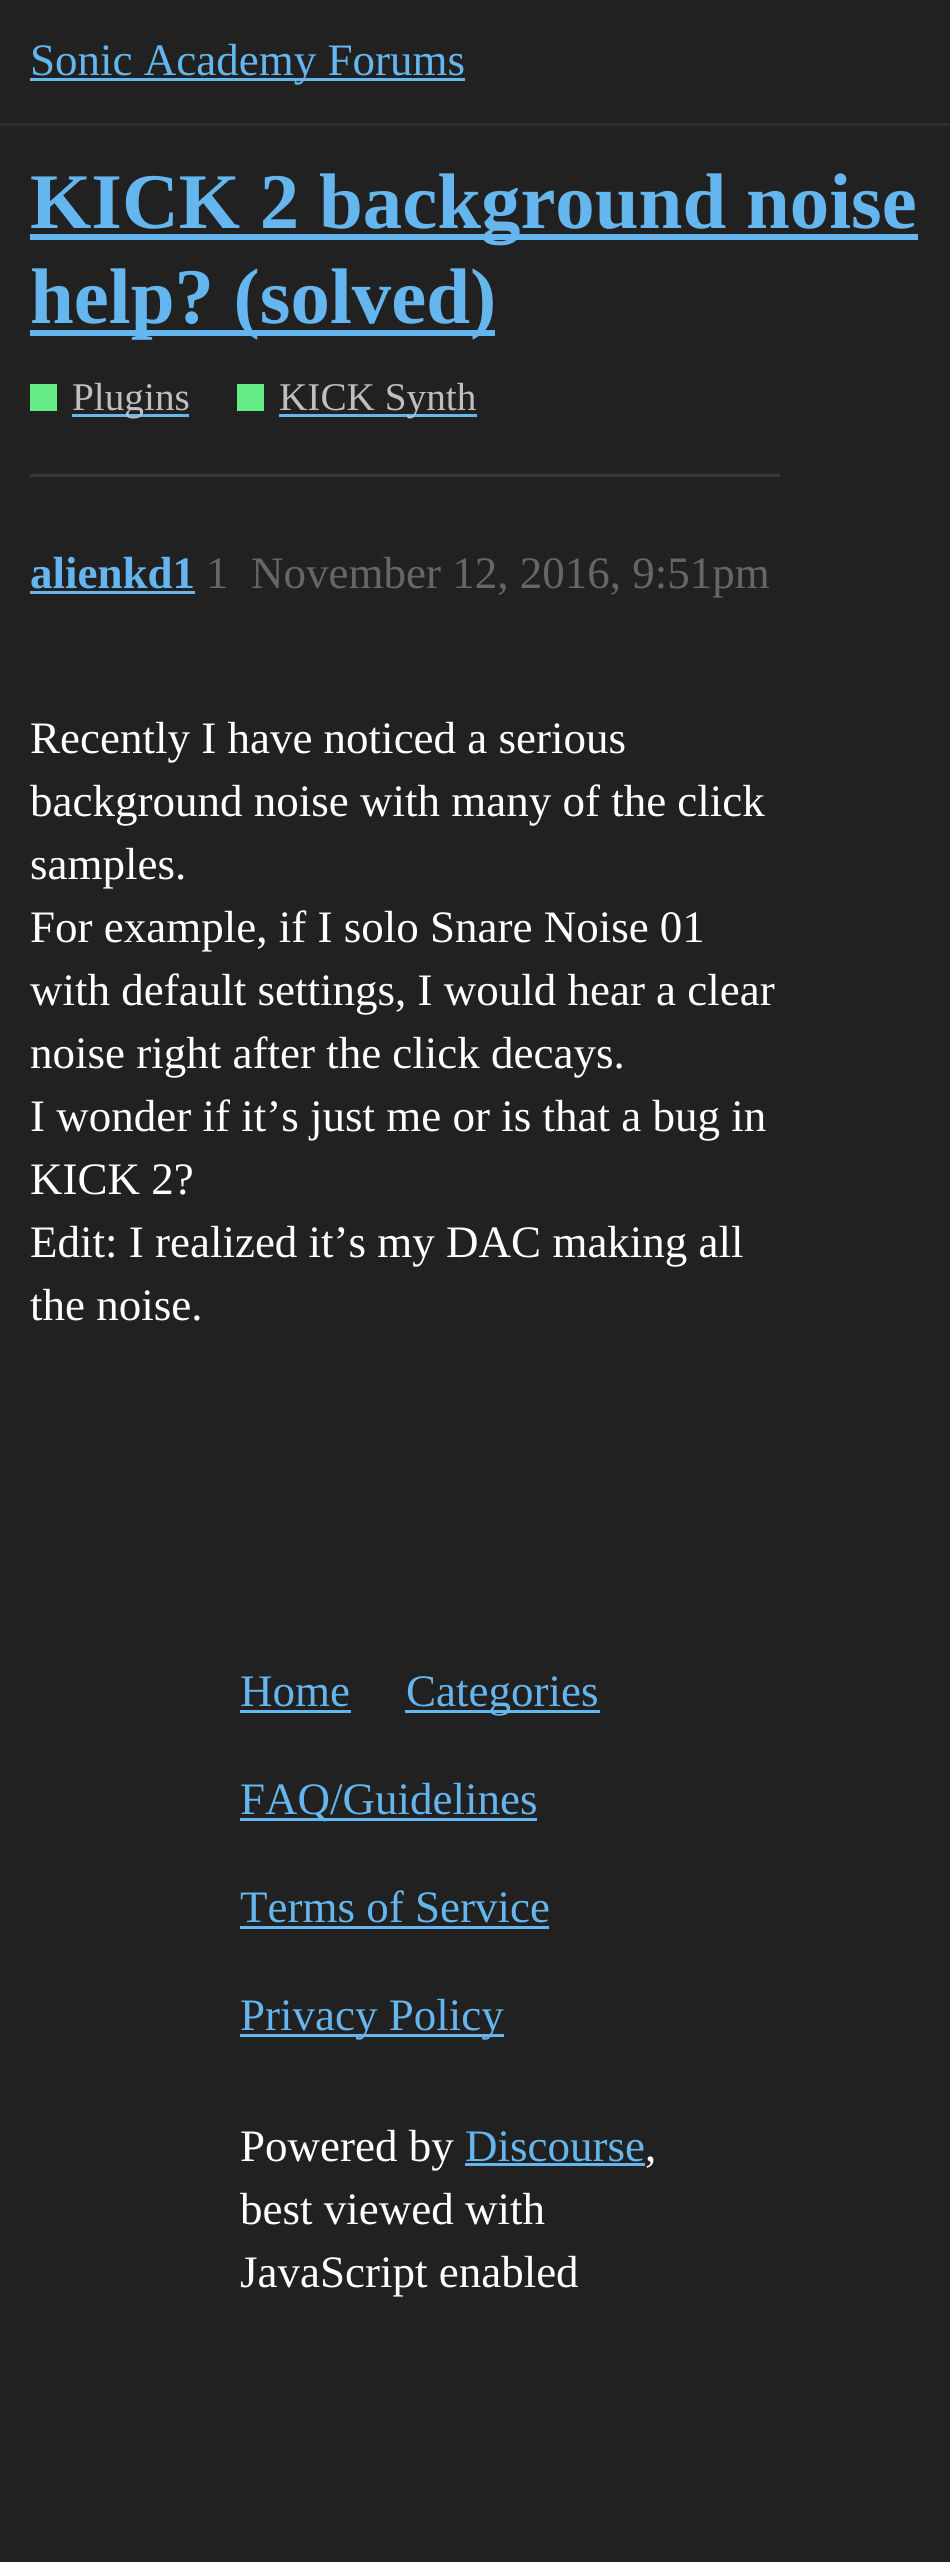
#include <cairo/cairo.h>
#include <math.h>
#include <stddef.h>

static cairo_t *cr;

static void use_color(int r, int g, int b) {
  cairo_set_source_rgb(cr, r / 255.0, g / 255.0, b / 255.0);
}

static void text(double x, double y, const char *s, const char *family, double size, int italic, int bold, int r, int g, int b) {
  cairo_select_font_face(cr, family, italic ? CAIRO_FONT_SLANT_ITALIC : CAIRO_FONT_SLANT_NORMAL,
    bold ? CAIRO_FONT_WEIGHT_BOLD : CAIRO_FONT_WEIGHT_NORMAL);
  cairo_set_font_size(cr, size);
  use_color(r, g, b);
  cairo_move_to(cr, x, y);
  cairo_show_text(cr, s);
}

static void box(double x, double y, double w, double h, int r, int g, int b) {
  use_color(r, g, b);
  cairo_rectangle(cr, x, y, w, h);
  cairo_fill(cr);
}

static void draw(void) {
  use_color(33, 33, 33);
  cairo_paint(cr);
  box(0, 123, 950, 3, 44, 44, 44);
  box(30, 78, 435, 3, 101, 182, 238);
  box(30, 234, 888, 6, 101, 182, 238);
  box(30, 330, 465, 6, 101, 182, 238);
  box(30, 384, 27, 27, 101, 238, 136);
  box(72, 414, 117, 3, 101, 182, 238);
  box(237, 384, 27, 27, 101, 238, 136);
  box(279, 414, 198, 3, 101, 182, 238);
  box(30, 474, 750, 3, 56, 56, 56);
  box(30, 591, 165, 3, 101, 182, 238);
  box(240, 1710, 111, 3, 101, 182, 238);
  box(405, 1710, 195, 3, 101, 182, 238);
  box(240, 1818, 297, 3, 101, 182, 238);
  box(240, 1926, 309, 3, 101, 182, 238);
  box(240, 2034, 264, 3, 101, 182, 238);
  box(465, 2163, 180, 3, 101, 182, 238);
  text(30, 75, "Sonic Academy Forums", "Liberation Serif", 45, 0, 0, 101, 182, 238);
  text(30, 228, "KICK 2 background noise", "Liberation Serif", 78.8, 0, 1, 101, 182, 238);
  text(30, 323, "help? (solved)", "Liberation Serif", 78.8, 0, 1, 101, 182, 238);
  text(72, 410, "Plugins", "Liberation Serif", 39.25, 0, 0, 191, 191, 191);
  text(279, 410, "KICK Synth", "Liberation Serif", 39.25, 0, 0, 191, 191, 191);
  text(30, 588, "alienkd1", "Liberation Serif", 45, 0, 1, 101, 182, 238);
  text(206, 588, "1", "Liberation Serif", 45, 0, 0, 102, 102, 102);
  text(251, 588, "November 12, 2016, 9:51pm", "Liberation Serif", 45, 0, 0, 102, 102, 102);
  text(30, 753, "Recently I have noticed a serious", "Liberation Serif", 45, 0, 0, 255, 255, 255);
  text(30, 816, "background noise with many of the click", "Liberation Serif", 45, 0, 0, 255, 255, 255);
  text(30, 879, "samples.", "Liberation Serif", 45, 0, 0, 255, 255, 255);
  text(30, 942, "For example, if I solo Snare Noise 01", "Liberation Serif", 45, 0, 0, 255, 255, 255);
  text(30, 1005, "with default settings, I would hear a clear", "Liberation Serif", 45, 0, 0, 255, 255, 255);
  text(30, 1068, "noise right after the click decays.", "Liberation Serif", 45, 0, 0, 255, 255, 255);
  text(30, 1131, "I wonder if it’s just me or is that a bug in", "Liberation Serif", 45, 0, 0, 255, 255, 255);
  text(30, 1194, "KICK 2?", "Liberation Serif", 45, 0, 0, 255, 255, 255);
  text(30, 1257, "Edit: I realized it’s my DAC making all", "Liberation Serif", 45, 0, 0, 255, 255, 255);
  text(30, 1320, "the noise.", "Liberation Serif", 45, 0, 0, 255, 255, 255);
  text(240, 1706, "Home", "Liberation Serif", 45, 0, 0, 101, 182, 238);
  text(406, 1706, "Categories", "Liberation Serif", 45, 0, 0, 101, 182, 238);
  text(240, 1814, "FAQ/Guidelines", "Liberation Serif", 45, 0, 0, 101, 182, 238);
  text(240, 1922, "Terms of Service", "Liberation Serif", 45, 0, 0, 101, 182, 238);
  text(240, 2030, "Privacy Policy", "Liberation Serif", 45, 0, 0, 101, 182, 238);
  text(240, 2161, "Powered by", "Liberation Serif", 45, 0, 0, 255, 255, 255);
  text(465, 2161, "Discourse", "Liberation Serif", 45, 0, 0, 101, 182, 238);
  text(645, 2161, ",", "Liberation Serif", 45, 0, 0, 255, 255, 255);
  text(240, 2224, "best viewed with", "Liberation Serif", 45, 0, 0, 255, 255, 255);
  text(240, 2287, "JavaScript enabled", "Liberation Serif", 45, 0, 0, 255, 255, 255);
}

int main(void) {
  cairo_surface_t *surface = cairo_image_surface_create(CAIRO_FORMAT_RGB24, 950, 2562);
  cr = cairo_create(surface);
  cairo_font_options_t *options = cairo_font_options_create();
  cairo_font_options_set_hint_metrics(options, CAIRO_HINT_METRICS_OFF);
  cairo_font_options_set_hint_style(options, CAIRO_HINT_STYLE_NONE);
  cairo_set_font_options(cr, options);
  cairo_set_miter_limit(cr, 4);
  draw();
  cairo_surface_write_to_png(surface, "out.png");
  cairo_font_options_destroy(options);
  cairo_destroy(cr);
  cairo_surface_destroy(surface);
  return 0;
}
